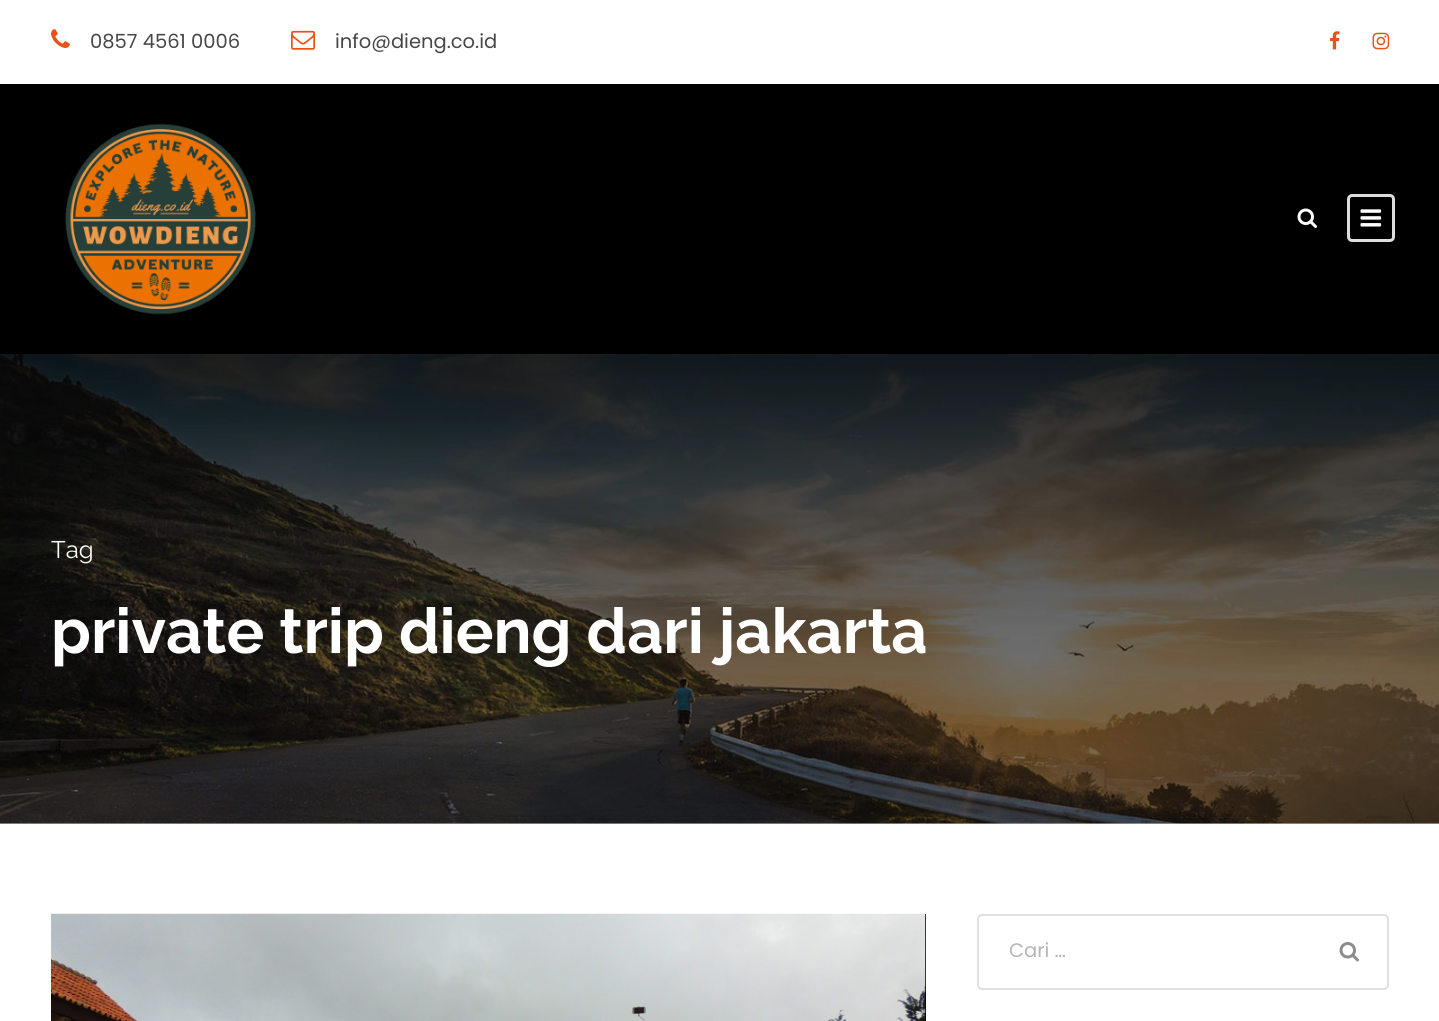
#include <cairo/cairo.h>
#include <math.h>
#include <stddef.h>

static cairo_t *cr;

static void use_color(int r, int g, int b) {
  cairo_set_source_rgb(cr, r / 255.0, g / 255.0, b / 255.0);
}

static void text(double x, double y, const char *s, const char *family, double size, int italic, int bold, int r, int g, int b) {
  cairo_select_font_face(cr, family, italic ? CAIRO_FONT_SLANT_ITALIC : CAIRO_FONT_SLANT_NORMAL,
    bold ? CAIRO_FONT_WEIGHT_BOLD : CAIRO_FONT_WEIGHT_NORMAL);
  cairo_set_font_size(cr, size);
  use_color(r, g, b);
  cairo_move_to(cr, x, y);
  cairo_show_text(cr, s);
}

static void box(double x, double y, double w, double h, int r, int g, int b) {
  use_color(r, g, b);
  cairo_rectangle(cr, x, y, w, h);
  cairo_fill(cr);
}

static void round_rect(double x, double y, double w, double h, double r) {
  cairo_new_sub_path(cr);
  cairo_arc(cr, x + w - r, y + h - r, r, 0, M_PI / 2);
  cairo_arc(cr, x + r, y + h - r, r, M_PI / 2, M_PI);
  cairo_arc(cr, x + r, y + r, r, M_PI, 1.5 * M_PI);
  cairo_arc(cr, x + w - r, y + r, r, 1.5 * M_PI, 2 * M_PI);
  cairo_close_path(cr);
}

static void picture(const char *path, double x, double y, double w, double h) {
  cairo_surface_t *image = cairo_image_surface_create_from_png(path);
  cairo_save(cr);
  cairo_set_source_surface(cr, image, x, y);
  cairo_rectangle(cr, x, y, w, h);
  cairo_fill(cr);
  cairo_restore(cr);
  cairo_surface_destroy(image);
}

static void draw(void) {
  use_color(255, 255, 255);
  cairo_paint(cr);
  picture("img_01.png", 51, 29, 19, 19);
  picture("img_02.png", 291, 30, 24, 20);
  picture("img_03.png", 1330, 31, 10, 19);
  picture("img_04.png", 1372, 32, 18, 18);
  box(0, 84, 1439, 270, 0, 0, 0);
  picture("img_05.png", 65, 123, 191, 192);
  picture("img_06.png", 1297, 208, 20, 20);
  round_rect(1348.5, 195.5, 45, 45, 3.5);
  use_color(221, 221, 221);
  cairo_set_line_width(cr, 3);
  cairo_stroke(cr);
  picture("img_07.png", 1360, 209, 22, 18);
  picture("img_08.png", 0, 354, 1439, 470);
  cairo_set_source_rgba(cr, 0, 0, 0, 0.18);
  cairo_rectangle(cr, 0, 354, 1439, 470);
  cairo_fill(cr);
  box(925, 914, 1, 107, 0, 0, 0);
  picture("img_09.png", 51, 913, 875, 108);
  round_rect(978, 915, 410, 74, 4);
  use_color(224, 224, 224);
  cairo_set_line_width(cr, 2);
  cairo_stroke(cr);
  picture("img_10.png", 1339, 942, 20, 20);
  text(90, 48, "0857 4561 0006", "Poppins", 19.5, 0, 0, 71, 71, 71);
  text(335, 48, "info@dieng.co.id", "Poppins", 19.5, 0, 0, 71, 71, 71);
  text(51, 558, "Tag", "Raleway", 24, 0, 0, 255, 255, 255);
  text(51, 653, "private trip dieng dari jakarta", "Raleway", 63, 0, 1, 255, 255, 255);
  text(1009, 957, "Cari …", "Poppins", 19.5, 0, 0, 181, 181, 181);
}

int main(void) {
  cairo_surface_t *surface = cairo_image_surface_create(CAIRO_FORMAT_RGB24, 1439, 1021);
  cr = cairo_create(surface);
  cairo_font_options_t *options = cairo_font_options_create();
  cairo_font_options_set_hint_metrics(options, CAIRO_HINT_METRICS_OFF);
  cairo_font_options_set_hint_style(options, CAIRO_HINT_STYLE_NONE);
  cairo_set_font_options(cr, options);
  cairo_set_miter_limit(cr, 4);
  draw();
  cairo_surface_write_to_png(surface, "out.png");
  cairo_font_options_destroy(options);
  cairo_destroy(cr);
  cairo_surface_destroy(surface);
  return 0;
}
